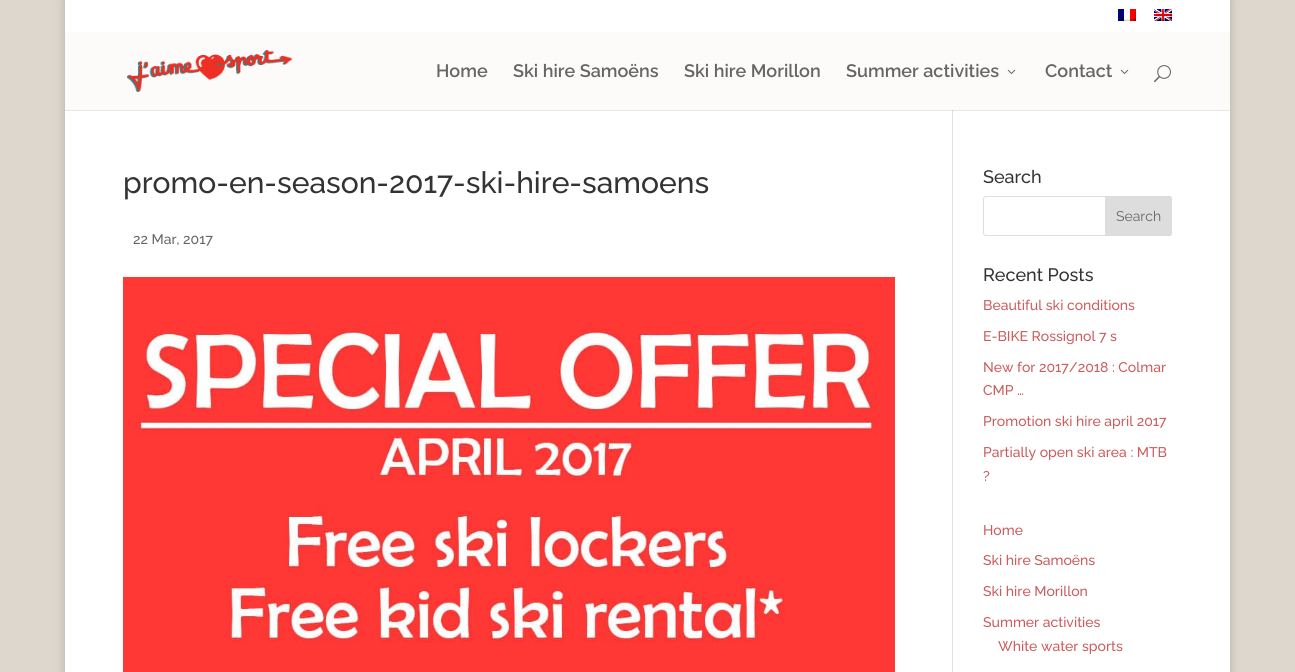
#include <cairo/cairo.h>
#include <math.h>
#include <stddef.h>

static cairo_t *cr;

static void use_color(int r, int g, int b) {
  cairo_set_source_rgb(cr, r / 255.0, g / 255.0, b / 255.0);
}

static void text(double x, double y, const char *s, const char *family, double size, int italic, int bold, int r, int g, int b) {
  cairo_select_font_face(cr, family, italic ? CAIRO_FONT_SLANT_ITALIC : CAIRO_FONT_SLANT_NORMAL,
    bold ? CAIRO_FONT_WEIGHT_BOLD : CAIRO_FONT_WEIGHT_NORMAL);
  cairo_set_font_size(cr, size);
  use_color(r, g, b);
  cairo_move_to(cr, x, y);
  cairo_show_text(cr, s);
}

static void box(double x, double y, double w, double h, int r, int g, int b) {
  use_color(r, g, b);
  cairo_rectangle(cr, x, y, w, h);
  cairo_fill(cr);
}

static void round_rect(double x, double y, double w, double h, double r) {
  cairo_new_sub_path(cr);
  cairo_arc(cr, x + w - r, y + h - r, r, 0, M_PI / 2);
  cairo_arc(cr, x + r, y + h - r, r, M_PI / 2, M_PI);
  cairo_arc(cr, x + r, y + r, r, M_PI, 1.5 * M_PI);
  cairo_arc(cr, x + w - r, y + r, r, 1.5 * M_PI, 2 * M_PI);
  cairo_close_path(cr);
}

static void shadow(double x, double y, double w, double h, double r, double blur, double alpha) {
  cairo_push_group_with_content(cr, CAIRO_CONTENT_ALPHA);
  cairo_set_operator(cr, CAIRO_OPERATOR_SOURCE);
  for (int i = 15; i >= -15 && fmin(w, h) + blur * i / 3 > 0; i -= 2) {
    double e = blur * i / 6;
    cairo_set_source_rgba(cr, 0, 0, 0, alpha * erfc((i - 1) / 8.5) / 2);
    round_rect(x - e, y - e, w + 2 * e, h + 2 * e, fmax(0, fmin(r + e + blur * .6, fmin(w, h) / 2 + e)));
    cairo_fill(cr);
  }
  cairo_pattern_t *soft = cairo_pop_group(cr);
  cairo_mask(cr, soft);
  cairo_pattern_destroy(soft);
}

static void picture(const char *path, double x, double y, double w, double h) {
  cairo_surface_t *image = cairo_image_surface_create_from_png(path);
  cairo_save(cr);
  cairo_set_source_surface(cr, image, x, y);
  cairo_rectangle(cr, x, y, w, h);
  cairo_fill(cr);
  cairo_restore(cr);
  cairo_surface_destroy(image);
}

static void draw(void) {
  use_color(221, 215, 206);
  cairo_paint(cr);
  use_color(0, 0, 0);
  shadow(65, 0, 1165, 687, 0, 5, 0.2);
  box(65, 0, 1165, 32, 255, 255, 255);
  picture("img_01.png", 1118, 9, 18, 12);
  picture("img_02.png", 1154, 9, 18, 12);
  box(65, 32, 1165, 78, 252, 251, 250);
  picture("img_03.png", 127, 50, 165, 42);
  picture("img_04.png", 1007, 69, 9, 5);
  picture("img_04.png", 1120, 69, 9, 5);
  picture("img_05.png", 1154, 65, 17, 18);
  box(65, 111, 1165, 561, 255, 255, 255);
  box(65, 110, 1165, 1, 230, 230, 230);
  box(952, 110, 1, 562, 226, 226, 226);
  box(952, 110, 1, 1, 203, 203, 203);
  picture("img_06.png", 123, 277, 772, 395);
  round_rect(983.5, 196.5, 188, 39, 2.5);
  use_color(221, 221, 221);
  cairo_set_line_width(cr, 1);
  cairo_stroke(cr);
  cairo_new_path(cr);
  cairo_move_to(cr, 1105.5, 196.5);
  cairo_line_to(cr, 1169, 196.5);
  cairo_curve_to(cr, 1170.5, 196.5, 1171.5, 197.5, 1171.5, 199);
  cairo_line_to(cr, 1171.5, 233);
  cairo_curve_to(cr, 1171.5, 234.5, 1170.5, 235.5, 1169, 235.5);
  cairo_line_to(cr, 1105.5, 235.5);
  cairo_close_path(cr);
  cairo_fill_preserve(cr);
  cairo_stroke(cr);
  text(436, 77, "Home", "Raleway SemiBold", 18, 0, 0, 102, 102, 102);
  text(513, 77, "Ski hire Samoëns", "Raleway SemiBold", 18, 0, 0, 102, 102, 102);
  text(684, 77, "Ski hire Morillon", "Raleway SemiBold", 18, 0, 0, 102, 102, 102);
  text(846, 77, "Summer activities", "Raleway SemiBold", 18, 0, 0, 102, 102, 102);
  text(1045, 77, "Contact", "Raleway SemiBold", 18, 0, 0, 102, 102, 102);
  text(123, 193, "promo-en-season-2017-ski-hire-samoens", "Raleway Medium", 30, 0, 0, 51, 51, 51);
  text(133, 244, "22 Mar, 2017", "Raleway Medium", 14, 0, 0, 102, 102, 102);
  text(983, 183, "Search", "Raleway Medium", 18, 0, 0, 51, 51, 51);
  text(1116, 221, "Search", "Raleway", 14, 0, 0, 102, 102, 102);
  text(983, 281, "Recent Posts", "Raleway Medium", 18, 0, 0, 51, 51, 51);
  text(983, 310, "Beautiful ski conditions", "Raleway Medium", 14, 0, 0, 205, 92, 92);
  text(983, 341, "E-BIKE Rossignol 7 s", "Raleway Medium", 14, 0, 0, 205, 92, 92);
  text(983, 372, "New for 2017/2018 : Colmar", "Raleway Medium", 14, 0, 0, 205, 92, 92);
  text(983, 395, "CMP …", "Raleway Medium", 14, 0, 0, 205, 92, 92);
  text(983, 426, "Promotion ski hire april 2017", "Raleway Medium", 14, 0, 0, 205, 92, 92);
  text(983, 457, "Partially open ski area : MTB", "Raleway Medium", 14, 0, 0, 205, 92, 92);
  text(983, 481, "?", "Raleway Medium", 14, 0, 0, 205, 92, 92);
  text(983, 535, "Home", "Raleway Medium", 14, 0, 0, 205, 92, 92);
  text(983, 565, "Ski hire Samoëns", "Raleway Medium", 14, 0, 0, 205, 92, 92);
  text(983, 596, "Ski hire Morillon", "Raleway Medium", 14, 0, 0, 205, 92, 92);
  text(983, 627, "Summer activities", "Raleway Medium", 14, 0, 0, 205, 92, 92);
  text(998, 651, "White water sports", "Raleway Medium", 14, 0, 0, 205, 92, 92);
}

int main(void) {
  cairo_surface_t *surface = cairo_image_surface_create(CAIRO_FORMAT_RGB24, 1295, 672);
  cr = cairo_create(surface);
  cairo_font_options_t *options = cairo_font_options_create();
  cairo_font_options_set_hint_metrics(options, CAIRO_HINT_METRICS_OFF);
  cairo_font_options_set_hint_style(options, CAIRO_HINT_STYLE_NONE);
  cairo_set_font_options(cr, options);
  cairo_set_miter_limit(cr, 4);
  draw();
  cairo_surface_write_to_png(surface, "out.png");
  cairo_font_options_destroy(options);
  cairo_destroy(cr);
  cairo_surface_destroy(surface);
  return 0;
}
